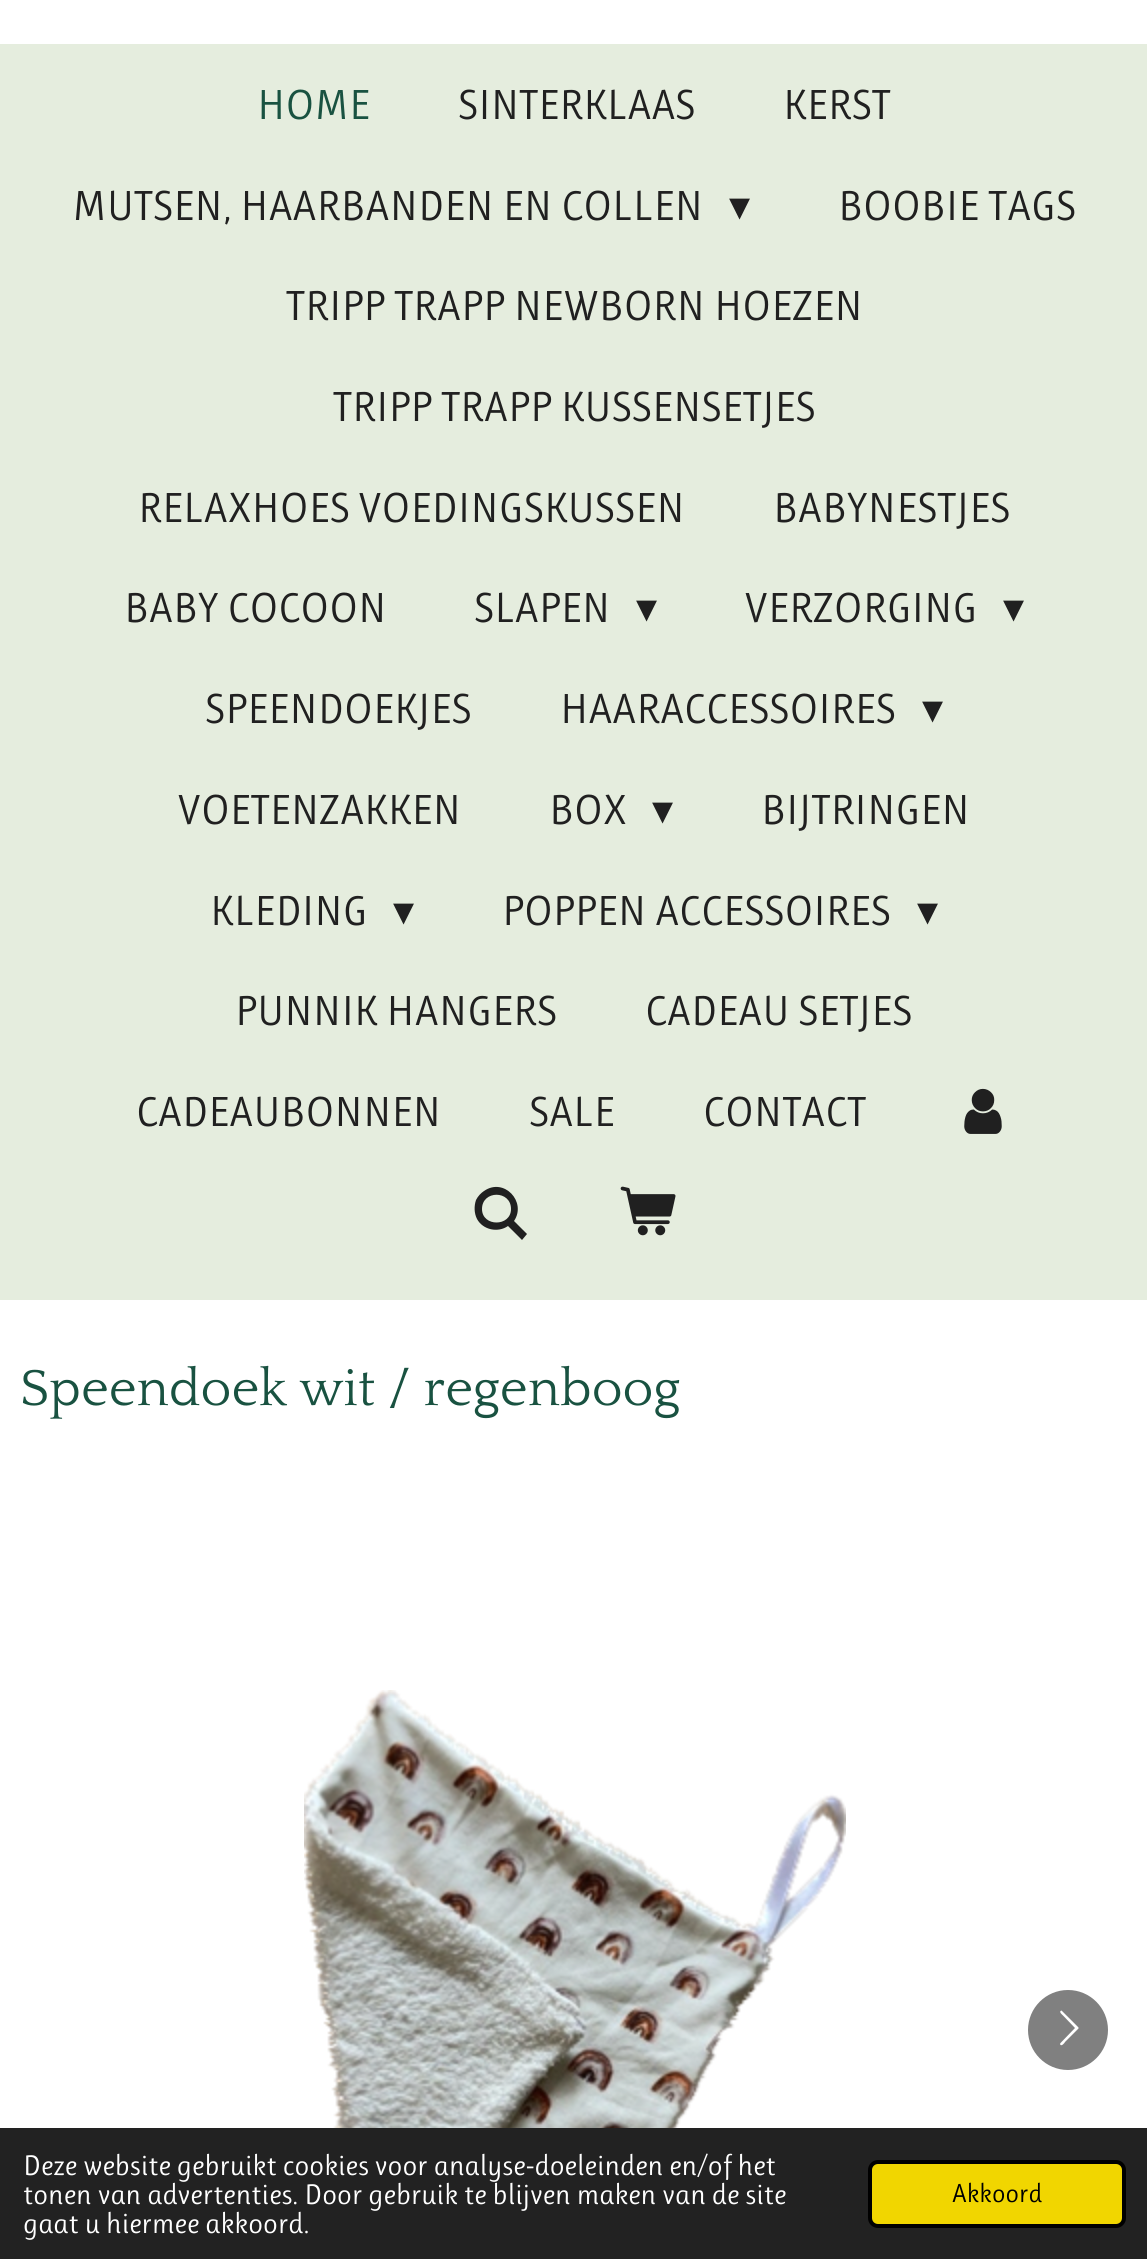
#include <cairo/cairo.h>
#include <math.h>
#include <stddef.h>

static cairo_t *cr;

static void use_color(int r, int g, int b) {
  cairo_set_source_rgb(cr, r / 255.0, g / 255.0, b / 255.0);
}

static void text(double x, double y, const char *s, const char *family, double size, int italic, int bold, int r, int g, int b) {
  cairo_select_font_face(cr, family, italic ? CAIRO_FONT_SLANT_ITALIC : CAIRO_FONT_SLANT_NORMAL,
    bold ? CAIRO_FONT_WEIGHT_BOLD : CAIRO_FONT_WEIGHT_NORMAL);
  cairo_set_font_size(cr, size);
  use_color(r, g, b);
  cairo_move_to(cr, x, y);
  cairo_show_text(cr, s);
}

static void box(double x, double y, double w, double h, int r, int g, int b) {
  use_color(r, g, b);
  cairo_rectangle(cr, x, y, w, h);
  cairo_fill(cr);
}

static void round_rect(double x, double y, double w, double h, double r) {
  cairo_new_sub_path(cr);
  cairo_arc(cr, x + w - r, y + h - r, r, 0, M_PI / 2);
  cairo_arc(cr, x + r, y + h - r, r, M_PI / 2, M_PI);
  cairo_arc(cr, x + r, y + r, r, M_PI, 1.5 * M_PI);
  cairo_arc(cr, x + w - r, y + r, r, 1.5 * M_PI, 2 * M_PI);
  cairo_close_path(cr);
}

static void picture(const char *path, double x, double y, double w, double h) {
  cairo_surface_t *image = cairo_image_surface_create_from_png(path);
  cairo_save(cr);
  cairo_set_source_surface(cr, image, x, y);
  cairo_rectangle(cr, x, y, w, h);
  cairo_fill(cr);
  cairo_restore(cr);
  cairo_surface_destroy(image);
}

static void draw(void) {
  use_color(255, 255, 255);
  cairo_paint(cr);
  box(0, 44, 1147, 1256, 229, 237, 222);
  picture("img_01.png", 964, 1088, 38, 46);
  use_color(32, 32, 32);
  cairo_new_path(cr);
  cairo_move_to(cr, 514, 1221);
  cairo_line_to(cr, 527, 1234);
  cairo_line_to(cr, 522, 1240);
  cairo_line_to(cr, 508, 1226);
  cairo_curve_to(cr, 498, 1233, 483, 1230, 477, 1219);
  cairo_curve_to(cr, 474, 1213, 474, 1206, 476, 1200);
  cairo_curve_to(cr, 478, 1196, 481, 1193, 484, 1191);
  cairo_curve_to(cr, 504, 1177, 527, 1202, 514, 1221);
  cairo_close_path(cr);
  cairo_move_to(cr, 511, 1209);
  cairo_curve_to(cr, 511, 1190, 482, 1190, 482, 1209);
  cairo_curve_to(cr, 482, 1227, 511, 1227, 511, 1209);
  cairo_close_path(cr);
  cairo_fill(cr);
  picture("img_02.png", 620, 1186, 56, 50);
  picture("img_03.png", 304, 1690, 542, 438);
  use_color(128, 128, 128);
  cairo_arc(cr, 1068, 2030, 40, 0, 2 * M_PI);
  cairo_fill(cr);
  use_color(255, 255, 255);
  cairo_new_path(cr);
  cairo_move_to(cr, 1060.5, 2043);
  cairo_line_to(cr, 1075, 2028);
  cairo_line_to(cr, 1063, 2015.5);
  cairo_curve_to(cr, 1062.5, 2015, 1058, 2011.5, 1061.5, 2010.5);
  cairo_line_to(cr, 1062, 2011);
  cairo_line_to(cr, 1078.5, 2027.5);
  cairo_line_to(cr, 1078.5, 2028.5);
  cairo_line_to(cr, 1065, 2042);
  cairo_curve_to(cr, 1065, 2042.5, 1061, 2047.5, 1060, 2044);
  cairo_close_path(cr);
  cairo_fill(cr);
  box(0, 2128, 1147, 131, 34, 34, 34);
  use_color(241, 214, 0);
  round_rect(870, 2162, 254, 64, 8);
  cairo_fill_preserve(cr);
  use_color(0, 0, 0);
  cairo_set_line_width(cr, 4);
  cairo_stroke(cr);
  text(257, 119, "HOME", "Ruluko", 42, 0, 0, 25, 82, 65);
  text(458, 119, "SINTERKLAAS", "Ruluko", 42, 0, 0, 32, 32, 32);
  text(783, 119, "KERST", "Ruluko", 42, 0, 0, 32, 32, 32);
  text(72, 220, "MUTSEN, HAARBANDEN EN COLLEN", "Ruluko", 42, 0, 0, 32, 32, 32);
  text(729, 220, "▾", "DejaVu Sans", 42, 0, 0, 32, 32, 32);
  text(838, 220, "BOOBIE TAGS", "Ruluko", 42, 0, 0, 32, 32, 32);
  text(286, 320, "TRIPP TRAPP NEWBORN HOEZEN", "Ruluko", 42, 0, 0, 32, 32, 32);
  text(333, 421, "TRIPP TRAPP KUSSENSETJES", "Ruluko", 42, 0, 0, 32, 32, 32);
  text(138, 522, "RELAXHOES VOEDINGSKUSSEN", "Ruluko", 42, 0, 0, 32, 32, 32);
  text(773, 522, "BABYNESTJES", "Ruluko", 42, 0, 0, 32, 32, 32);
  text(124, 622, "BABY COCOON", "Ruluko", 42, 0, 0, 32, 32, 32);
  text(474, 622, "SLAPEN", "Ruluko", 42, 0, 0, 32, 32, 32);
  text(636, 622, "▾", "DejaVu Sans", 42, 0, 0, 32, 32, 32);
  text(745, 622, "VERZORGING", "Ruluko", 42, 0, 0, 32, 32, 32);
  text(1003, 622, "▾", "DejaVu Sans", 42, 0, 0, 32, 32, 32);
  text(205, 723, "SPEENDOEKJES", "Ruluko", 42, 0, 0, 32, 32, 32);
  text(560, 723, "HAARACCESSOIRES", "Ruluko", 42, 0, 0, 32, 32, 32);
  text(922, 723, "▾", "DejaVu Sans", 42, 0, 0, 32, 32, 32);
  text(178, 824, "VOETENZAKKEN", "Ruluko", 42, 0, 0, 32, 32, 32);
  text(549, 824, "BOX", "Ruluko", 42, 0, 0, 32, 32, 32);
  text(652, 824, "▾", "DejaVu Sans", 42, 0, 0, 32, 32, 32);
  text(761, 824, "BIJTRINGEN", "Ruluko", 42, 0, 0, 32, 32, 32);
  text(210, 925, "KLEDING", "Ruluko", 42, 0, 0, 32, 32, 32);
  text(393, 925, "▾", "DejaVu Sans", 42, 0, 0, 32, 32, 32);
  text(502, 925, "POPPEN ACCESSOIRES", "Ruluko", 42, 0, 0, 32, 32, 32);
  text(917, 925, "▾", "DejaVu Sans", 42, 0, 0, 32, 32, 32);
  text(235, 1025, "PUNNIK HANGERS", "Ruluko", 42, 0, 0, 32, 32, 32);
  text(645, 1025, "CADEAU SETJES", "Ruluko", 42, 0, 0, 32, 32, 32);
  text(136, 1126, "CADEAUBONNEN", "Ruluko", 42, 0, 0, 32, 32, 32);
  text(529, 1126, "SALE", "Ruluko", 42, 0, 0, 32, 32, 32);
  text(703, 1126, "CONTACT", "Ruluko", 42, 0, 0, 32, 32, 32);
  text(20, 1405, "Speendoek wit / regenboog", "Quattrocento", 53, 0, 0, 25, 82, 65);
  text(23, 2175, "Deze website gebruikt cookies voor analyse-doeleinden en/of het", "Ruluko", 28.6, 0, 0, 255, 255, 255);
  text(23, 2204, "tonen van advertenties. Door gebruik te blijven maken van de site", "Ruluko", 28.6, 0, 0, 255, 255, 255);
  text(23, 2233, "gaat u hiermee akkoord.", "Ruluko", 28.6, 0, 0, 255, 255, 255);
  text(952, 2202, "Akkoord", "Ruluko", 26, 0, 0, 0, 0, 0);
}

int main(void) {
  cairo_surface_t *surface = cairo_image_surface_create(CAIRO_FORMAT_RGB24, 1147, 2259);
  cr = cairo_create(surface);
  cairo_font_options_t *options = cairo_font_options_create();
  cairo_font_options_set_hint_metrics(options, CAIRO_HINT_METRICS_OFF);
  cairo_font_options_set_hint_style(options, CAIRO_HINT_STYLE_NONE);
  cairo_set_font_options(cr, options);
  cairo_set_miter_limit(cr, 4);
  draw();
  cairo_surface_write_to_png(surface, "out.png");
  cairo_font_options_destroy(options);
  cairo_destroy(cr);
  cairo_surface_destroy(surface);
  return 0;
}
